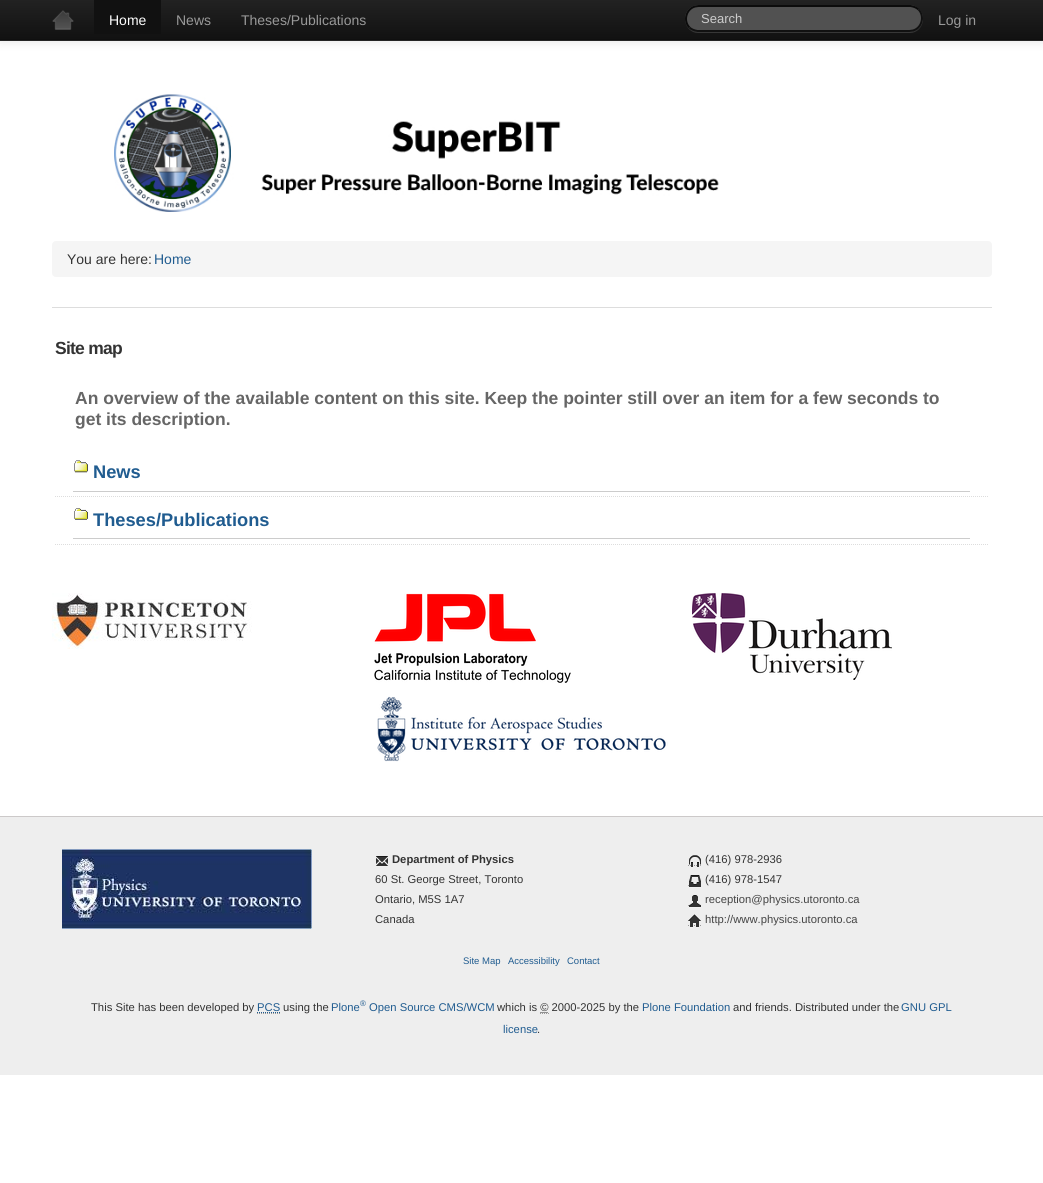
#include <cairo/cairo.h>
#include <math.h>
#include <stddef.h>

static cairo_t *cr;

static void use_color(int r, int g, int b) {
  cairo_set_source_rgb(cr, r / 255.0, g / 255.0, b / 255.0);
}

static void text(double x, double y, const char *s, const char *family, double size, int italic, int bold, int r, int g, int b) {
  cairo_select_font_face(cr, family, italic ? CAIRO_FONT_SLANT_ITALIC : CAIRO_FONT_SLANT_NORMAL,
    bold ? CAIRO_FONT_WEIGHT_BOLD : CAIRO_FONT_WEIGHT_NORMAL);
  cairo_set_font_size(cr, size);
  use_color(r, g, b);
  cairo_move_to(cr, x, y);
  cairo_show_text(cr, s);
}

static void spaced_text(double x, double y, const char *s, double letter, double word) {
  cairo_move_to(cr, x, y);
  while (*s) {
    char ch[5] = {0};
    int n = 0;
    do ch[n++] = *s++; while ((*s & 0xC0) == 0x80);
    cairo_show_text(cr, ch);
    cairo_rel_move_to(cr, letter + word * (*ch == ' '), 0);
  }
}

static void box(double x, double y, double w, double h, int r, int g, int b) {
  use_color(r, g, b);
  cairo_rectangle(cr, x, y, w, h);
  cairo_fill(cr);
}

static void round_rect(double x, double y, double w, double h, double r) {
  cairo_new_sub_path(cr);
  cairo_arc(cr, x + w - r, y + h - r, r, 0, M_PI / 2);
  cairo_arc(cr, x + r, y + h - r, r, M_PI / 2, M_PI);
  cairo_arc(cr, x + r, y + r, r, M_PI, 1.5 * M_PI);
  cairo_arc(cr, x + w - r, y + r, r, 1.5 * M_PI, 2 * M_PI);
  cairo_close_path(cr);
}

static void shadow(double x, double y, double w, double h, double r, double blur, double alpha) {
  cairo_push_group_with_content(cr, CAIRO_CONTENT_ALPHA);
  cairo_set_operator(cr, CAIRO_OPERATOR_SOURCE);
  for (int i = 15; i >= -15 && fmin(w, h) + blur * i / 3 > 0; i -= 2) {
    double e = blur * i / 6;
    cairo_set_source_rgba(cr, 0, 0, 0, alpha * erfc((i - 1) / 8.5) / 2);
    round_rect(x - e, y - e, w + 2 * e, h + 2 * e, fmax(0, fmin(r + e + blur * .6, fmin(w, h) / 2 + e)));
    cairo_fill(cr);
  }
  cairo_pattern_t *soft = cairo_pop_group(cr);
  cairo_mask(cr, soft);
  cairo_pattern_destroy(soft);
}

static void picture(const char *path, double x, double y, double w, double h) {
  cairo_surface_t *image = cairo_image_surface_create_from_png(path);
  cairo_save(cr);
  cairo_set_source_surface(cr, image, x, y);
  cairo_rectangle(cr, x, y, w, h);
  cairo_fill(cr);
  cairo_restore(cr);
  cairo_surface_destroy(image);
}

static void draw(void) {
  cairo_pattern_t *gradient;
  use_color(255, 255, 255);
  cairo_paint(cr);
  use_color(0, 0, 0);
  shadow(0, 1, 1043, 41, 0, 5, 0.1);
  gradient = cairo_pattern_create_linear(522, 0, 522, 40);
  cairo_pattern_add_color_stop_rgba(gradient, 0, 0.133, 0.133, 0.133, 1);
  cairo_pattern_add_color_stop_rgba(gradient, 1, 0.067, 0.067, 0.067, 1);
  cairo_set_source(cr, gradient);
  cairo_pattern_destroy(gradient);
  cairo_rectangle(cr, 0, 0, 1043, 39);
  cairo_fill(cr);
  box(0, 39, 1043, 1, 15, 15, 15);
  box(0, 40, 1043, 1, 37, 37, 37);
  picture("img_01.png", 52, 10, 22, 20);
  box(94, 0, 67, 34, 17, 17, 17);
  use_color(55, 55, 55);
  cairo_new_path(cr);
  cairo_move_to(cr, 685, 19);
  cairo_curve_to(cr, 685, 27, 691, 33, 698, 33);
  cairo_line_to(cr, 910, 33);
  cairo_curve_to(cr, 917, 33, 923, 27, 923, 19);
  cairo_curve_to(cr, 923, 26, 917, 32, 910, 32);
  cairo_line_to(cr, 698, 32);
  cairo_curve_to(cr, 691, 32, 685, 26, 685, 19);
  cairo_close_path(cr);
  cairo_fill(cr);
  use_color(81, 81, 81);
  round_rect(685, 5, 238, 27, 13.5);
  cairo_fill(cr);
  cairo_new_path(cr);
  cairo_move_to(cr, 918.5, 9.5);
  cairo_curve_to(cr, 925, 16, 922, 28, 913, 30.5);
  cairo_line_to(cr, 909.5, 31);
  cairo_line_to(cr, 697.5, 31);
  cairo_curve_to(cr, 694.5, 30.5, 691.5, 29.5, 689.5, 27.5);
  use_color(17, 17, 17);
  cairo_stroke(cr);
  cairo_new_path(cr);
  cairo_move_to(cr, 689.5, 27.5);
  cairo_curve_to(cr, 683, 21, 686, 9, 695, 6.5);
  cairo_line_to(cr, 698.5, 6);
  cairo_line_to(cr, 910.5, 6);
  cairo_curve_to(cr, 913.5, 6.5, 916.5, 7.5, 918.5, 9.5);
  use_color(11, 11, 11);
  cairo_stroke(cr);
  picture("img_02.png", 114, 94, 605, 118);
  use_color(245, 245, 245);
  round_rect(52, 241, 940, 36, 4);
  cairo_fill(cr);
  box(52, 307, 940, 1, 221, 221, 221);
  cairo_new_path(cr);
  cairo_move_to(cr, 55, 496.5);
  cairo_line_to(cr, 988, 496.5);
  cairo_set_line_width(cr, 1);
  cairo_set_dash(cr, (double[]){1, 1}, 2, 0);
  cairo_stroke(cr);
  picture("img_03.png", 74, 460, 14, 13);
  box(73, 491, 897, 1, 204, 204, 204);
  cairo_new_path(cr);
  cairo_move_to(cr, 55, 544.5);
  cairo_line_to(cr, 988, 544.5);
  use_color(221, 221, 221);
  cairo_stroke(cr);
  picture("img_04.png", 74, 508, 14, 12);
  box(73, 538, 897, 1, 204, 204, 204);
  picture("img_05.png", 52, 593, 200, 56);
  picture("img_06.png", 374, 593, 197, 90);
  picture("img_07.png", 377, 696, 291, 66);
  picture("img_08.png", 692, 593, 200, 87);
  box(0, 817, 1043, 258, 238, 238, 238);
  box(0, 816, 1043, 1, 204, 201, 201);
  picture("img_09.png", 62, 849, 250, 80);
  picture("img_10.png", 376, 856, 12, 11);
  cairo_new_path(cr);
  cairo_move_to(cr, 688, 865.5);
  cairo_line_to(cr, 702, 865.5);
  use_color(153, 153, 153);
  cairo_stroke(cr);
  picture("img_11.png", 689, 855, 12, 13);
  cairo_new_path(cr);
  cairo_move_to(cr, 688, 885.5);
  cairo_line_to(cr, 702, 885.5);
  cairo_stroke(cr);
  picture("img_12.png", 689, 875, 12, 13);
  cairo_new_path(cr);
  cairo_move_to(cr, 688, 905.5);
  cairo_line_to(cr, 702, 905.5);
  cairo_stroke(cr);
  picture("img_13.png", 689, 895, 12, 13);
  cairo_new_path(cr);
  cairo_move_to(cr, 688, 925.5);
  cairo_line_to(cr, 702, 925.5);
  cairo_stroke(cr);
  picture("img_14.png", 688, 914, 13, 14);
  cairo_new_path(cr);
  cairo_move_to(cr, 257, 1013.5);
  cairo_line_to(cr, 280, 1013.5);
  cairo_stroke(cr);
  cairo_new_path(cr);
  cairo_move_to(cr, 257, 1012.5);
  cairo_line_to(cr, 280, 1012.5);
  use_color(32, 92, 144);
  cairo_stroke(cr);
  cairo_new_path(cr);
  cairo_move_to(cr, 540.5, 1012.5);
  cairo_line_to(cr, 548.5, 1012.5);
  use_color(51, 51, 51);
  cairo_stroke(cr);
  text(109, 25, "Home", "Liberation Sans", 14, 0, 0, 255, 255, 255);
  text(176, 25, "News", "Liberation Sans", 14, 0, 0, 153, 153, 153);
  text(241, 25, "Theses/Publications", "Liberation Sans", 14, 0, 0, 153, 153, 153);
  text(701, 23, "Search", "Liberation Sans", 13, 0, 0, 204, 204, 204);
  text(938, 25, "Log in", "Liberation Sans", 14, 0, 0, 153, 153, 153);
  text(67, 264, "You are here:", "Liberation Sans", 14, 0, 0, 51, 51, 51);
  text(154, 264, "Home", "Liberation Sans", 14, 0, 0, 32, 92, 144);
  cairo_select_font_face(cr, "Liberation Sans", CAIRO_FONT_SLANT_NORMAL, CAIRO_FONT_WEIGHT_BOLD);
  cairo_set_font_size(cr, 17.5);
  use_color(51, 51, 51);
  spaced_text(55, 354, "Site map", -0.75, 0);
  text(75, 404, "An overview of the available content on this site. Keep the pointer still over an item for a few seconds to", "Liberation Sans", 17.5, 0, 1, 102, 102, 102);
  text(75, 425, "get its description.", "Liberation Sans", 17.5, 0, 1, 102, 102, 102);
  text(93, 478, "News", "Liberation Sans", 18.25, 0, 1, 32, 92, 144);
  text(93, 526, "Theses/Publications", "Liberation Sans", 18.25, 0, 1, 32, 92, 144);
  text(392, 863, "Department of Physics", "Liberation Sans", 11.25, 0, 1, 51, 51, 51);
  text(375, 883, "60 St. George Street, Toronto", "Liberation Sans", 11.25, 0, 0, 51, 51, 51);
  text(375, 903, "Ontario, M5S 1A7", "Liberation Sans", 11.25, 0, 0, 51, 51, 51);
  text(375, 923, "Canada", "Liberation Sans", 11.25, 0, 0, 51, 51, 51);
  text(705, 863, "(416) 978-2936", "Liberation Sans", 11.25, 0, 0, 51, 51, 51);
  text(705, 883, "(416) 978-1547", "Liberation Sans", 11.25, 0, 0, 51, 51, 51);
  text(705, 903, "reception@physics.utoronto.ca", "Liberation Sans", 11.25, 0, 0, 68, 68, 68);
  text(705, 923, "http://www.physics.utoronto.ca", "Liberation Sans", 11.25, 0, 0, 68, 68, 68);
  text(463, 964, "Site Map", "Liberation Sans", 9.5, 0, 0, 32, 92, 144);
  text(508, 964, "Accessibility", "Liberation Sans", 9.5, 0, 0, 32, 92, 144);
  text(567, 964, "Contact", "Liberation Sans", 9.5, 0, 0, 32, 92, 144);
  text(91, 1011, "This Site has been developed by", "Liberation Sans", 11.25, 0, 0, 51, 51, 51);
  text(257, 1011, "PCS", "Liberation Sans", 11.25, 0, 0, 32, 92, 144);
  text(283, 1011, "using the", "Liberation Sans", 11.25, 0, 0, 51, 51, 51);
  text(331, 1011, "Plone", "Liberation Sans", 11.25, 0, 0, 32, 92, 144);
  text(360, 1006, "®", "Liberation Sans", 8, 0, 0, 32, 92, 144);
  text(369, 1011, "Open Source CMS/WCM", "Liberation Sans", 11.25, 0, 0, 32, 92, 144);
  text(497, 1011, "which is © 2000-2025 by the", "Liberation Sans", 11.25, 0, 0, 51, 51, 51);
  text(642, 1011, "Plone Foundation", "Liberation Sans", 11.25, 0, 0, 32, 92, 144);
  text(733, 1011, "and friends. Distributed under the", "Liberation Sans", 11.25, 0, 0, 51, 51, 51);
  text(901, 1011, "GNU GPL", "Liberation Sans", 11.25, 0, 0, 32, 92, 144);
  cairo_new_path(cr);
  cairo_move_to(cr, 540, 1013.5);
  cairo_line_to(cr, 549, 1013.5);
  use_color(153, 153, 153);
  cairo_stroke(cr);
  text(503, 1033, "license", "Liberation Sans", 11.25, 0, 0, 32, 92, 144);
  text(537, 1033, ".", "Liberation Sans", 11.25, 0, 0, 51, 51, 51);
}

int main(void) {
  cairo_surface_t *surface = cairo_image_surface_create(CAIRO_FORMAT_RGB24, 1043, 1183);
  cr = cairo_create(surface);
  cairo_font_options_t *options = cairo_font_options_create();
  cairo_font_options_set_hint_metrics(options, CAIRO_HINT_METRICS_OFF);
  cairo_font_options_set_hint_style(options, CAIRO_HINT_STYLE_NONE);
  cairo_set_font_options(cr, options);
  cairo_set_miter_limit(cr, 4);
  draw();
  cairo_surface_write_to_png(surface, "out.png");
  cairo_font_options_destroy(options);
  cairo_destroy(cr);
  cairo_surface_destroy(surface);
  return 0;
}
